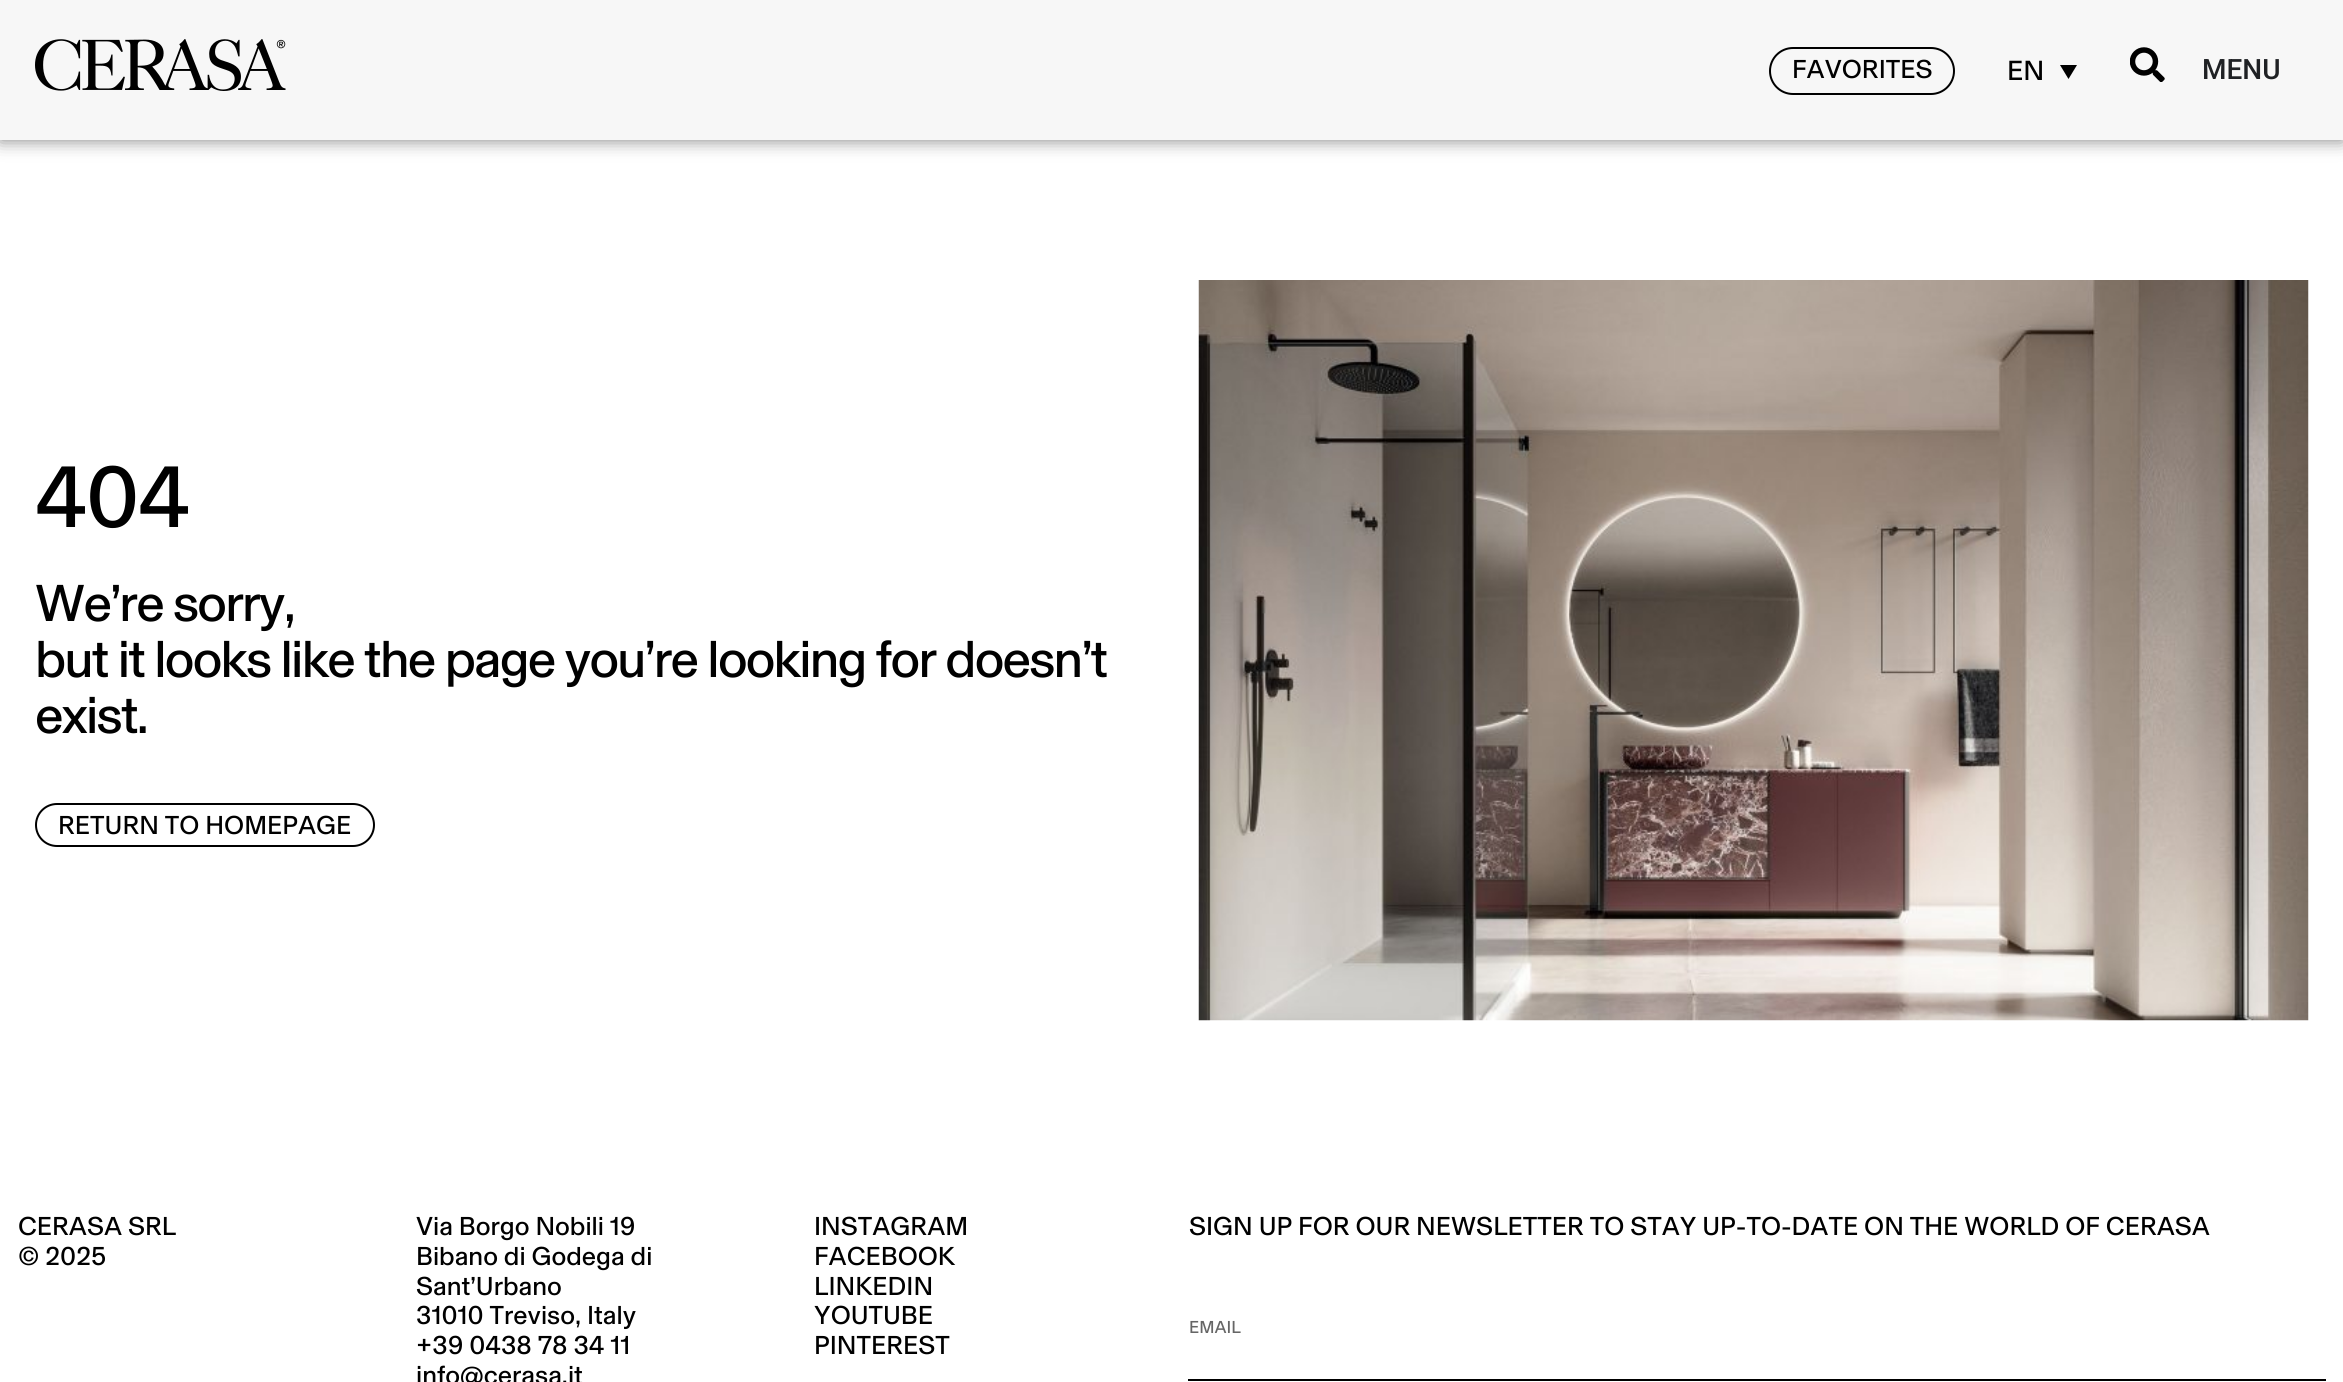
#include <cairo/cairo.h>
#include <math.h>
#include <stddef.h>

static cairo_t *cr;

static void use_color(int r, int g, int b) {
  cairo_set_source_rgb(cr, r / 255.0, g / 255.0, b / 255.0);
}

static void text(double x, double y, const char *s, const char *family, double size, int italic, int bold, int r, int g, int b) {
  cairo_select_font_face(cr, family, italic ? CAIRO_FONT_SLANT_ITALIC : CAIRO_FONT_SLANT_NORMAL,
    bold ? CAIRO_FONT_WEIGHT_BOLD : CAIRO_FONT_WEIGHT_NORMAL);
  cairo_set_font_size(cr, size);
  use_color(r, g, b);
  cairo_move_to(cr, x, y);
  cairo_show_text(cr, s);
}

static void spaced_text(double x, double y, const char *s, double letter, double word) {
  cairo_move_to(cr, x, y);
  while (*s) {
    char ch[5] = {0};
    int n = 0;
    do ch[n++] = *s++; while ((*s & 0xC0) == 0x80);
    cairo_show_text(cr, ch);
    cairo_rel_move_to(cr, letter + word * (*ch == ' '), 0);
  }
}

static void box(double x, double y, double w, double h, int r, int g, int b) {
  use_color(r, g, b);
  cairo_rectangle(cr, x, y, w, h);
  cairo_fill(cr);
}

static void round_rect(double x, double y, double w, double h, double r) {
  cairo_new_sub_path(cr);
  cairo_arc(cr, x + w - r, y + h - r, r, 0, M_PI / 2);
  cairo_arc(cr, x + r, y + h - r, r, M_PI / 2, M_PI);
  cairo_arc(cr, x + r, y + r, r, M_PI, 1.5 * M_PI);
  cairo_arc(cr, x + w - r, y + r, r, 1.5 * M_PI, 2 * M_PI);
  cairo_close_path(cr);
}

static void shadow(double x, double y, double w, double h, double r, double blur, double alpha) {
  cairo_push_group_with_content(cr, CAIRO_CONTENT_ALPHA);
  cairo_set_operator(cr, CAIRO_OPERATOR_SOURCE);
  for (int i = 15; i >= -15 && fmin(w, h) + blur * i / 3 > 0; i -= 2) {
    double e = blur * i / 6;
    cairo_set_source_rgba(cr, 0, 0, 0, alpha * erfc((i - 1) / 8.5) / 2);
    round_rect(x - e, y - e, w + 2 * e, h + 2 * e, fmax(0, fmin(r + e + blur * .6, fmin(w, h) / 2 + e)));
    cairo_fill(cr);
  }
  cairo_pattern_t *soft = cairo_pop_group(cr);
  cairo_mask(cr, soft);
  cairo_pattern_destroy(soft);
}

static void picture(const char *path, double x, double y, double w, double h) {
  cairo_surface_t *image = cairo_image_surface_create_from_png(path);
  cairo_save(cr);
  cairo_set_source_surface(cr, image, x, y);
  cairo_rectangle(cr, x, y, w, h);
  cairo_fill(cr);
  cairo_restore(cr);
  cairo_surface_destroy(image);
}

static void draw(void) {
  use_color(255, 255, 255);
  cairo_paint(cr);
  use_color(0, 0, 0);
  shadow(0, 0, 2343, 140, 0, 9, 0.5);
  box(0, 0, 2343, 140, 247, 247, 247);
  picture("img_01.png", 35, 39, 251, 52);
  round_rect(1770, 48, 184, 46, 23);
  use_color(0, 0, 0);
  cairo_stroke(cr);
  cairo_new_path(cr);
  cairo_move_to(cr, 2060, 65);
  cairo_line_to(cr, 2077, 65);
  cairo_line_to(cr, 2068.5, 79);
  cairo_close_path(cr);
  cairo_fill(cr);
  picture("img_02.png", 2130, 47, 35, 35);
  round_rect(36, 804, 338, 42, 21);
  cairo_stroke(cr);
  picture("img_03.png", 1198, 280, 1111, 741);
  box(1188, 1379, 1138, 2, 0, 0, 0);
  text(1792, 78, "FAVORITES", "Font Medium", 26.25, 0, 0, 0, 0, 0);
  text(2007, 80, "EN", "Font Medium", 28, 0, 0, 0, 0, 0);
  text(2202, 79, "MENU", "Roboto Medium", 28, 0, 0, 31, 33, 36);
  cairo_select_font_face(cr, "Font Medium", CAIRO_FONT_SLANT_NORMAL, CAIRO_FONT_WEIGHT_NORMAL);
  cairo_set_font_size(cr, 88);
  use_color(0, 0, 0);
  spaced_text(35, 527, "404", -1.75, 0);
  cairo_set_font_size(cr, 52.5);
  spaced_text(35, 621, "We’re sorry,", -1.75, 0);
  spaced_text(35, 677, "but it looks like the page you’re looking for doesn’t", -1.75, 0);
  spaced_text(35, 733, "exist.", -1.75, 0);
  text(58, 834, "RETURN TO HOMEPAGE", "Font Medium", 26.25, 0, 0, 0, 0, 0);
  text(18, 1235, "CERASA SRL", "Font Medium", 26.25, 0, 0, 0, 0, 0);
  text(18, 1265, "© 2025", "Font Medium", 26.25, 0, 0, 0, 0, 0);
  text(416, 1235, "Via Borgo Nobili 19", "Font Medium", 26.25, 0, 0, 0, 0, 0);
  text(416, 1265, "Bibano di Godega di", "Font Medium", 26.25, 0, 0, 0, 0, 0);
  text(416, 1295, "Sant’Urbano", "Font Medium", 26.25, 0, 0, 0, 0, 0);
  text(416, 1324, "31010 Treviso, Italy", "Font Medium", 26.25, 0, 0, 0, 0, 0);
  text(416, 1354, "+39 0438 78 34 11", "Font Medium", 26.25, 0, 0, 0, 0, 0);
  text(416, 1384, "info@cerasa.it", "Font Medium", 26.25, 0, 0, 0, 0, 0);
  text(814, 1235, "INSTAGRAM", "Font Medium", 26.25, 0, 0, 0, 0, 0);
  text(814, 1265, "FACEBOOK", "Font Medium", 26.25, 0, 0, 0, 0, 0);
  text(814, 1295, "LINKEDIN", "Font Medium", 26.25, 0, 0, 0, 0, 0);
  text(814, 1324, "YOUTUBE", "Font Medium", 26.25, 0, 0, 0, 0, 0);
  text(814, 1354, "PINTEREST", "Font Medium", 26.25, 0, 0, 0, 0, 0);
  text(1189, 1235, "SIGN UP FOR OUR NEWSLETTER TO STAY UP-TO-DATE ON THE WORLD OF CERASA", "Font Medium", 26.25, 0, 0, 0, 0, 0);
  text(1189, 1333, "EMAIL", "Font Medium", 17.5, 0, 0, 102, 102, 102);
}

int main(void) {
  cairo_surface_t *surface = cairo_image_surface_create(CAIRO_FORMAT_RGB24, 2343, 1382);
  cr = cairo_create(surface);
  cairo_font_options_t *options = cairo_font_options_create();
  cairo_font_options_set_hint_metrics(options, CAIRO_HINT_METRICS_OFF);
  cairo_font_options_set_hint_style(options, CAIRO_HINT_STYLE_NONE);
  cairo_set_font_options(cr, options);
  cairo_set_miter_limit(cr, 4);
  draw();
  cairo_surface_write_to_png(surface, "out.png");
  cairo_font_options_destroy(options);
  cairo_destroy(cr);
  cairo_surface_destroy(surface);
  return 0;
}
